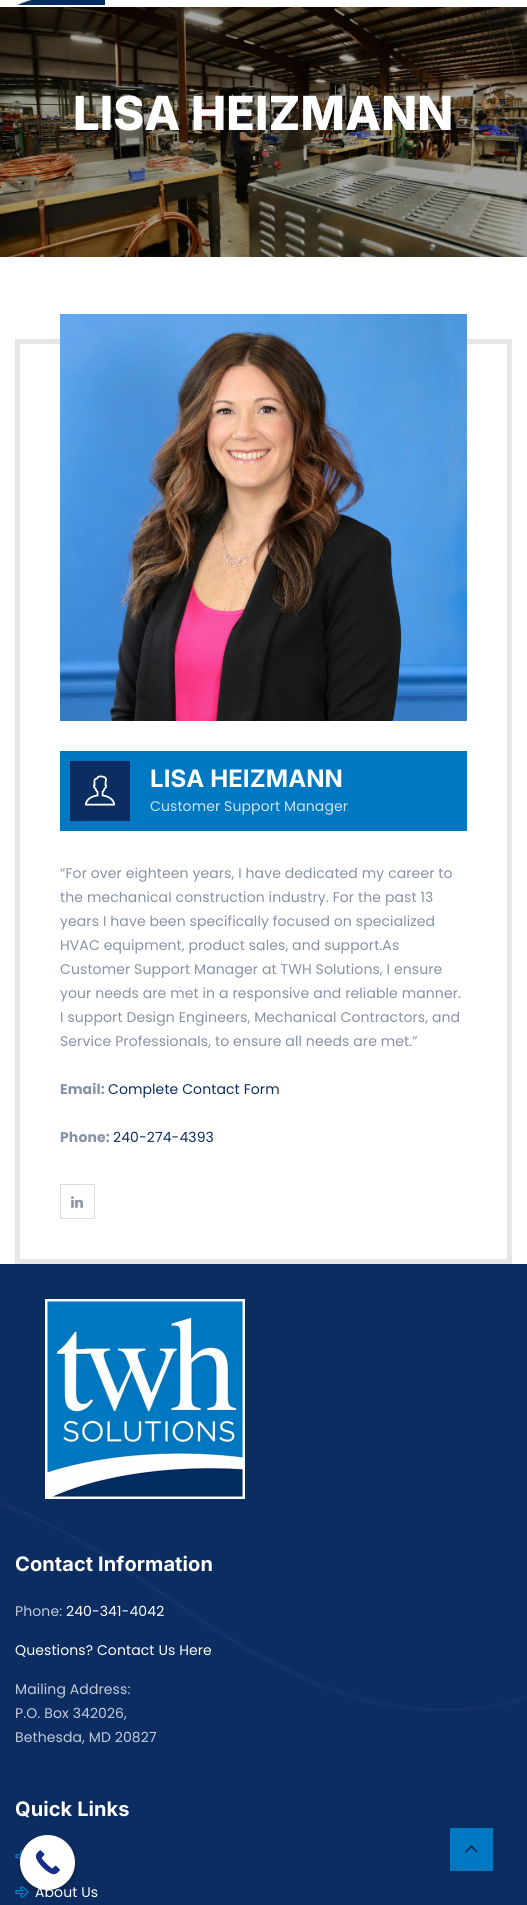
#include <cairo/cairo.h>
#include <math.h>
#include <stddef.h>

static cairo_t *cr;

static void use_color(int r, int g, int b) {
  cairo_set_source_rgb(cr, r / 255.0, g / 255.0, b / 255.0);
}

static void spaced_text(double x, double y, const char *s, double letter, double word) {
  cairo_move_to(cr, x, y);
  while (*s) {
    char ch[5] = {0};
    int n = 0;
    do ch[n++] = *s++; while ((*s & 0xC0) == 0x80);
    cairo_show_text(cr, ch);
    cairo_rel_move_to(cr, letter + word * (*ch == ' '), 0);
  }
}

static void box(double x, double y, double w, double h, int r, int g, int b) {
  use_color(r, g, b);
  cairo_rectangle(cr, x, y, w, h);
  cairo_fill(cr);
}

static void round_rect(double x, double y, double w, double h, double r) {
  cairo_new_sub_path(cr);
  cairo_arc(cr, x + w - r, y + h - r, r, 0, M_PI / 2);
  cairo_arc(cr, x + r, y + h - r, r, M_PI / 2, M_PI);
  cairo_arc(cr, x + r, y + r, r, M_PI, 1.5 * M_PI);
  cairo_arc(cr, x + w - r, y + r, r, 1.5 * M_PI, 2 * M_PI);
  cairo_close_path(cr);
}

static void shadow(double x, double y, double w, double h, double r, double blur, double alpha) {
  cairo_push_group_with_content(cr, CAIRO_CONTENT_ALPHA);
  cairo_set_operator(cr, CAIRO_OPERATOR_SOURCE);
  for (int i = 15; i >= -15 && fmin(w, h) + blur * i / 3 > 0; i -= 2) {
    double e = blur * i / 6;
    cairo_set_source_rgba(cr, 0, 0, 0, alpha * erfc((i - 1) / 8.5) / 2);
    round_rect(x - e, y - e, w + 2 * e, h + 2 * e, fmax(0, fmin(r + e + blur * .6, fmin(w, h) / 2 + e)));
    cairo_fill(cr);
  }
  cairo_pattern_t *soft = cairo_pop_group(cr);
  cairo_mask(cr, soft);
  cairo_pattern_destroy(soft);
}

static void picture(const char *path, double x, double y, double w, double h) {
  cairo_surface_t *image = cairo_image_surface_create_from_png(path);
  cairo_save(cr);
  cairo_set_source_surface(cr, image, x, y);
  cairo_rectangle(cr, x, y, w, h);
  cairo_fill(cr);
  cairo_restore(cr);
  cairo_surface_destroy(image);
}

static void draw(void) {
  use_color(255, 255, 255);
  cairo_paint(cr);
  picture("img_01.png", 17, 0, 88, 5);
  picture("img_02.png", 0, 7, 527, 250);
  cairo_rectangle(cr, 17.5, 341.5, 492, 920);
  use_color(231, 231, 231);
  cairo_set_line_width(cr, 5);
  cairo_stroke(cr);
  picture("img_03.png", 60, 314, 407, 407);
  box(60, 751, 407, 80, 1, 121, 194);
  box(70, 761, 60, 60, 12, 45, 98);
  picture("img_04.png", 85, 775, 30, 31);
  cairo_rectangle(cr, 60.5, 1184.5, 34, 34);
  use_color(218, 222, 228);
  cairo_set_line_width(cr, 1);
  cairo_stroke(cr);
  picture("img_05.png", 71, 1196, 12, 12);
  box(0, 1264, 527, 641, 12, 45, 98);
  picture("img_06.png", 0, 1502, 527, 210);
  picture("img_07.png", 45, 1299, 200, 200);
  picture("img_08.png", 15, 1850, 8, 12);
  picture("img_09.png", 15, 1886, 14, 12);
  use_color(0, 0, 0);
  shadow(20, 1838, 55, 55, 27.5, 3, 0.3);
  use_color(255, 255, 255);
  cairo_arc(cr, 47.5, 1862.5, 27.5, 0, 2 * M_PI);
  cairo_fill(cr);
  picture("img_10.png", 35, 1850, 25, 25);
  box(450, 1828, 43, 43, 1, 121, 194);
  picture("img_11.png", 465, 1845, 13, 8);
  cairo_select_font_face(cr, "Inter ExtraBold", CAIRO_FONT_SLANT_NORMAL, CAIRO_FONT_WEIGHT_NORMAL);
  cairo_set_font_size(cr, 47);
  use_color(255, 255, 255);
  spaced_text(73, 130, "LISA HEIZMANN", 0.1, 0);
  cairo_select_font_face(cr, "Inter", CAIRO_FONT_SLANT_NORMAL, CAIRO_FONT_WEIGHT_BOLD);
  cairo_set_font_size(cr, 24);
  spaced_text(150, 787, "LISA HEIZMANN", 0.1, 0);
  cairo_select_font_face(cr, "Poppins", CAIRO_FONT_SLANT_NORMAL, CAIRO_FONT_WEIGHT_NORMAL);
  cairo_set_font_size(cr, 14);
  use_color(204, 228, 243);
  spaced_text(150, 811, "Customer Support Manager", 0.1, 0);
  use_color(133, 146, 166);
  spaced_text(60, 878, "“For over eighteen years, I have dedicated my career to", 0.1, 0);
  spaced_text(60, 902, "the mechanical construction industry. For the past 13", 0.1, 0);
  spaced_text(60, 926, "years I have been specifically focused on specialized", 0.1, 0);
  spaced_text(60, 950, "HVAC equipment, product sales, and support.As", 0.1, 0);
  spaced_text(60, 974, "Customer Support Manager at TWH Solutions, I ensure", 0.1, 0);
  spaced_text(60, 998, "your needs are met in a responsive and reliable manner.", 0.1, 0);
  spaced_text(60, 1022, "I support Design Engineers, Mechanical Contractors, and", 0.1, 0);
  spaced_text(60, 1046, "Service Professionals, to ensure all needs are met.”", 0.1, 0);
  cairo_select_font_face(cr, "Poppins", CAIRO_FONT_SLANT_NORMAL, CAIRO_FONT_WEIGHT_BOLD);
  spaced_text(60, 1094, "Email:", 0.1, 0);
  cairo_select_font_face(cr, "Poppins", CAIRO_FONT_SLANT_NORMAL, CAIRO_FONT_WEIGHT_NORMAL);
  use_color(12, 45, 98);
  spaced_text(108, 1094, "Complete Contact Form", 0.1, 0);
  cairo_select_font_face(cr, "Poppins", CAIRO_FONT_SLANT_NORMAL, CAIRO_FONT_WEIGHT_BOLD);
  use_color(133, 146, 166);
  spaced_text(60, 1142, "Phone:", 0.1, 0);
  cairo_select_font_face(cr, "Poppins", CAIRO_FONT_SLANT_NORMAL, CAIRO_FONT_WEIGHT_NORMAL);
  use_color(12, 45, 98);
  spaced_text(113, 1142, "240-274-4393", 0.1, 0);
  cairo_select_font_face(cr, "Inter", CAIRO_FONT_SLANT_NORMAL, CAIRO_FONT_WEIGHT_BOLD);
  cairo_set_font_size(cr, 20);
  use_color(255, 255, 255);
  spaced_text(15, 1571, "Contact Information", 0.1, 0);
  cairo_select_font_face(cr, "Poppins", CAIRO_FONT_SLANT_NORMAL, CAIRO_FONT_WEIGHT_NORMAL);
  cairo_set_font_size(cr, 14);
  use_color(194, 203, 216);
  spaced_text(15, 1616, "Phone:", 0.1, 0);
  use_color(255, 255, 255);
  spaced_text(66, 1616, "240-341-4042", 0.1, 0);
  spaced_text(15, 1655, "Questions? Contact Us Here", 0.1, 0);
  use_color(194, 203, 216);
  spaced_text(15, 1694, "Mailing Address:", 0.1, 0);
  spaced_text(15, 1718, "P.O. Box 342026,", 0.1, 0);
  spaced_text(15, 1742, "Bethesda, MD 20827", 0.1, 0);
  cairo_select_font_face(cr, "Inter", CAIRO_FONT_SLANT_NORMAL, CAIRO_FONT_WEIGHT_BOLD);
  cairo_set_font_size(cr, 20);
  use_color(255, 255, 255);
  spaced_text(15, 1816, "Quick Links", 0.1, 0);
  cairo_select_font_face(cr, "Poppins", CAIRO_FONT_SLANT_NORMAL, CAIRO_FONT_WEIGHT_NORMAL);
  cairo_set_font_size(cr, 14);
  spaced_text(35, 1897, "About Us", 0.1, 0);
}

int main(void) {
  cairo_surface_t *surface = cairo_image_surface_create(CAIRO_FORMAT_RGB24, 527, 1905);
  cr = cairo_create(surface);
  cairo_font_options_t *options = cairo_font_options_create();
  cairo_font_options_set_hint_metrics(options, CAIRO_HINT_METRICS_OFF);
  cairo_font_options_set_hint_style(options, CAIRO_HINT_STYLE_NONE);
  cairo_set_font_options(cr, options);
  cairo_set_miter_limit(cr, 4);
  draw();
  cairo_surface_write_to_png(surface, "out.png");
  cairo_font_options_destroy(options);
  cairo_destroy(cr);
  cairo_surface_destroy(surface);
  return 0;
}
